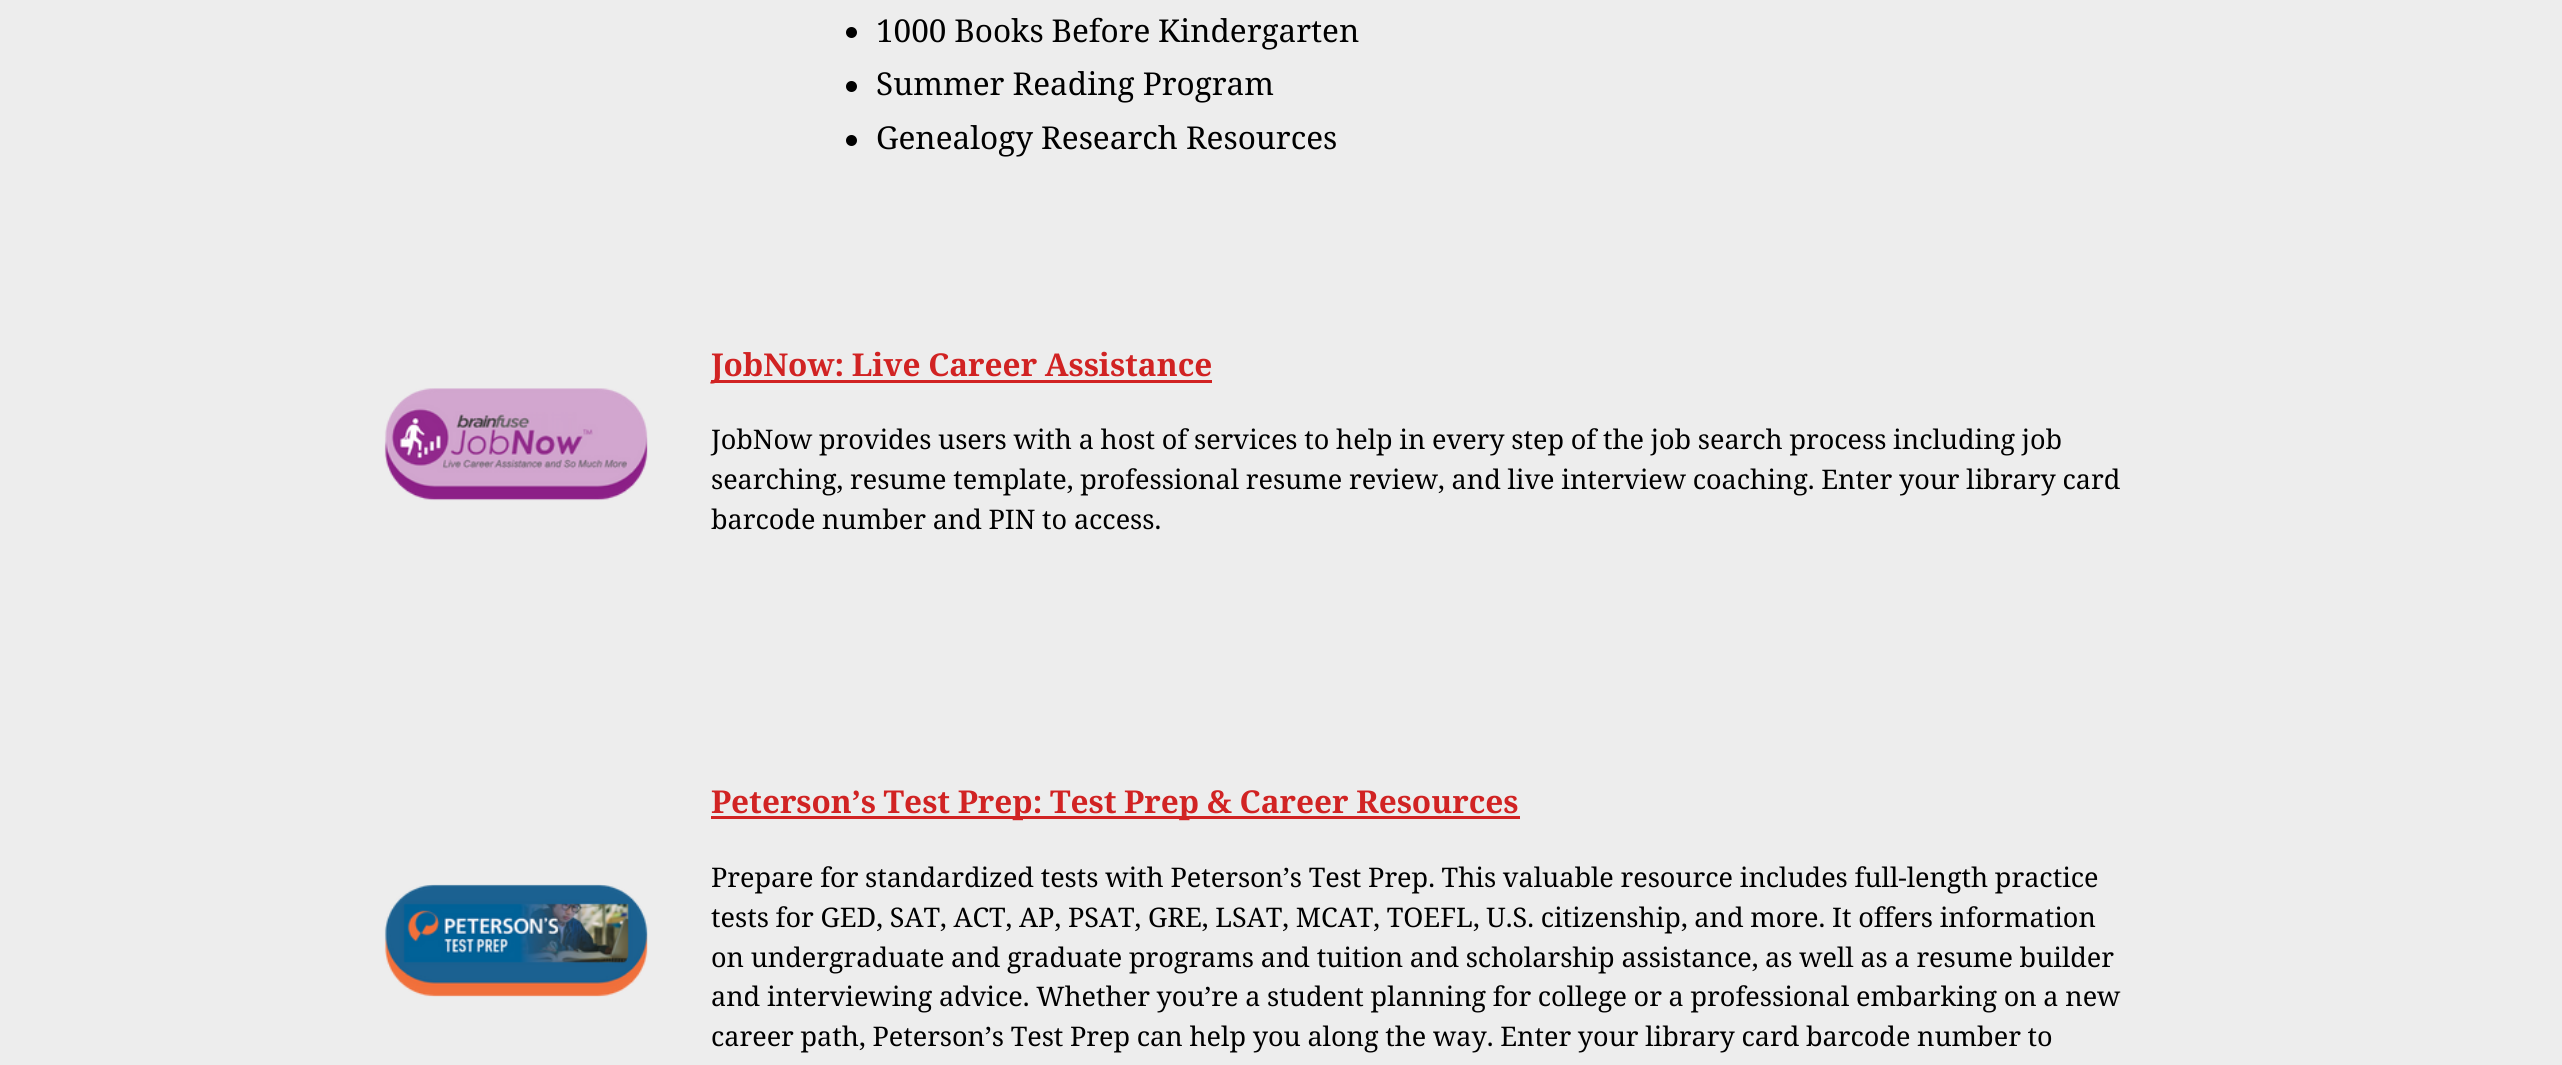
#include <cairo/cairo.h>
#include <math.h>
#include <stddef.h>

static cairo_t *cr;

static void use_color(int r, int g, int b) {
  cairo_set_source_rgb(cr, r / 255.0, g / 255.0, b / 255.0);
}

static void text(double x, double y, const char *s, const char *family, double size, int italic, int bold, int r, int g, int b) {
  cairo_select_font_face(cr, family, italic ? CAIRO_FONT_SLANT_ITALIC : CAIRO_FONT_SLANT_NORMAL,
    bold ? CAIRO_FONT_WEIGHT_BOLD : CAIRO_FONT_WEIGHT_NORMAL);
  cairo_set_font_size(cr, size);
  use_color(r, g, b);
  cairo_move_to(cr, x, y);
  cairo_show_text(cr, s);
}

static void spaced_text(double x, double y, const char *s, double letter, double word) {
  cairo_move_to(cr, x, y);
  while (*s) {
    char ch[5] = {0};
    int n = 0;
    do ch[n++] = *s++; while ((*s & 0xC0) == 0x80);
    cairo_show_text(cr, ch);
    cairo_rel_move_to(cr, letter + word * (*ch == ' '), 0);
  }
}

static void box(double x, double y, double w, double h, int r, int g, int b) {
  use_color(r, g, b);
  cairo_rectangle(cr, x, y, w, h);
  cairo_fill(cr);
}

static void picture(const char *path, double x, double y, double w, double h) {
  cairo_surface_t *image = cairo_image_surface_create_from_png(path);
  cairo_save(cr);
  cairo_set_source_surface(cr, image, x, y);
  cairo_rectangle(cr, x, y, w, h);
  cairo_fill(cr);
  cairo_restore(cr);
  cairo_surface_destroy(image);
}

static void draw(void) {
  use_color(237, 237, 237);
  cairo_paint(cr);
  use_color(0, 0, 0);
  cairo_arc(cr, 851.5, 32.5, 5.5, 0, 2 * M_PI);
  cairo_fill(cr);
  cairo_arc(cr, 851.5, 86.5, 5.5, 0, 2 * M_PI);
  cairo_fill(cr);
  cairo_arc(cr, 851.5, 140.5, 5.5, 0, 2 * M_PI);
  cairo_fill(cr);
  picture("img_01.png", 384, 388, 264, 113);
  box(711, 380, 501, 3, 209, 35, 35);
  picture("img_02.png", 384, 884, 264, 113);
  box(711, 816, 809, 3, 209, 35, 35);
  cairo_select_font_face(cr, "Noto Serif", CAIRO_FONT_SLANT_NORMAL, CAIRO_FONT_WEIGHT_NORMAL);
  cairo_set_font_size(cr, 31.5);
  use_color(0, 0, 0);
  spaced_text(876, 42, "1000 Books Before Kindergarten", 0, -0.5);
  text(876, 95, "Summer Reading Program", "Noto Serif", 31.5, 0, 0, 0, 0, 0);
  text(876, 149, "Genealogy Research Resources", "Noto Serif", 31.5, 0, 0, 0, 0, 0);
  cairo_select_font_face(cr, "Noto Serif", CAIRO_FONT_SLANT_NORMAL, CAIRO_FONT_WEIGHT_BOLD);
  use_color(209, 35, 35);
  spaced_text(711, 376, "JobNow: Live Career Assistance", 0, -0.5);
  cairo_select_font_face(cr, "Noto Serif", CAIRO_FONT_SLANT_NORMAL, CAIRO_FONT_WEIGHT_NORMAL);
  cairo_set_font_size(cr, 27);
  use_color(0, 0, 0);
  spaced_text(711, 449, "JobNow provides users with a host of services to help in every step of the job search process including job", 0, -0.3);
  spaced_text(711, 489, "searching, resume template, professional resume review, and live interview coaching. Enter your library card", 0, -0.3);
  spaced_text(711, 529, "barcode number and PIN to access.", 0, -0.3);
  cairo_select_font_face(cr, "Noto Serif", CAIRO_FONT_SLANT_NORMAL, CAIRO_FONT_WEIGHT_BOLD);
  cairo_set_font_size(cr, 31.5);
  use_color(209, 35, 35);
  spaced_text(711, 813, "Peterson’s Test Prep: Test Prep & Career Resources", 0, -0.5);
  cairo_select_font_face(cr, "Noto Serif", CAIRO_FONT_SLANT_NORMAL, CAIRO_FONT_WEIGHT_NORMAL);
  cairo_set_font_size(cr, 27);
  use_color(0, 0, 0);
  spaced_text(711, 887, "Prepare for standardized tests with Peterson’s Test Prep. This valuable resource includes full-length practice", 0, -0.3);
  spaced_text(711, 927, "tests for GED, SAT, ACT, AP, PSAT, GRE, LSAT, MCAT, TOEFL, U.S. citizenship, and more. It offers information", 0, -0.3);
  spaced_text(711, 967, "on undergraduate and graduate programs and tuition and scholarship assistance, as well as a resume builder", 0, -0.3);
  spaced_text(711, 1006, "and interviewing advice. Whether you’re a student planning for college or a professional embarking on a new", 0, -0.3);
  spaced_text(711, 1046, "career path, Peterson’s Test Prep can help you along the way. Enter your library card barcode number to", 0, -0.3);
}

int main(void) {
  cairo_surface_t *surface = cairo_image_surface_create(CAIRO_FORMAT_RGB24, 2562, 1065);
  cr = cairo_create(surface);
  cairo_font_options_t *options = cairo_font_options_create();
  cairo_font_options_set_hint_metrics(options, CAIRO_HINT_METRICS_OFF);
  cairo_font_options_set_hint_style(options, CAIRO_HINT_STYLE_NONE);
  cairo_set_font_options(cr, options);
  cairo_set_miter_limit(cr, 4);
  draw();
  cairo_surface_write_to_png(surface, "out.png");
  cairo_font_options_destroy(options);
  cairo_destroy(cr);
  cairo_surface_destroy(surface);
  return 0;
}
